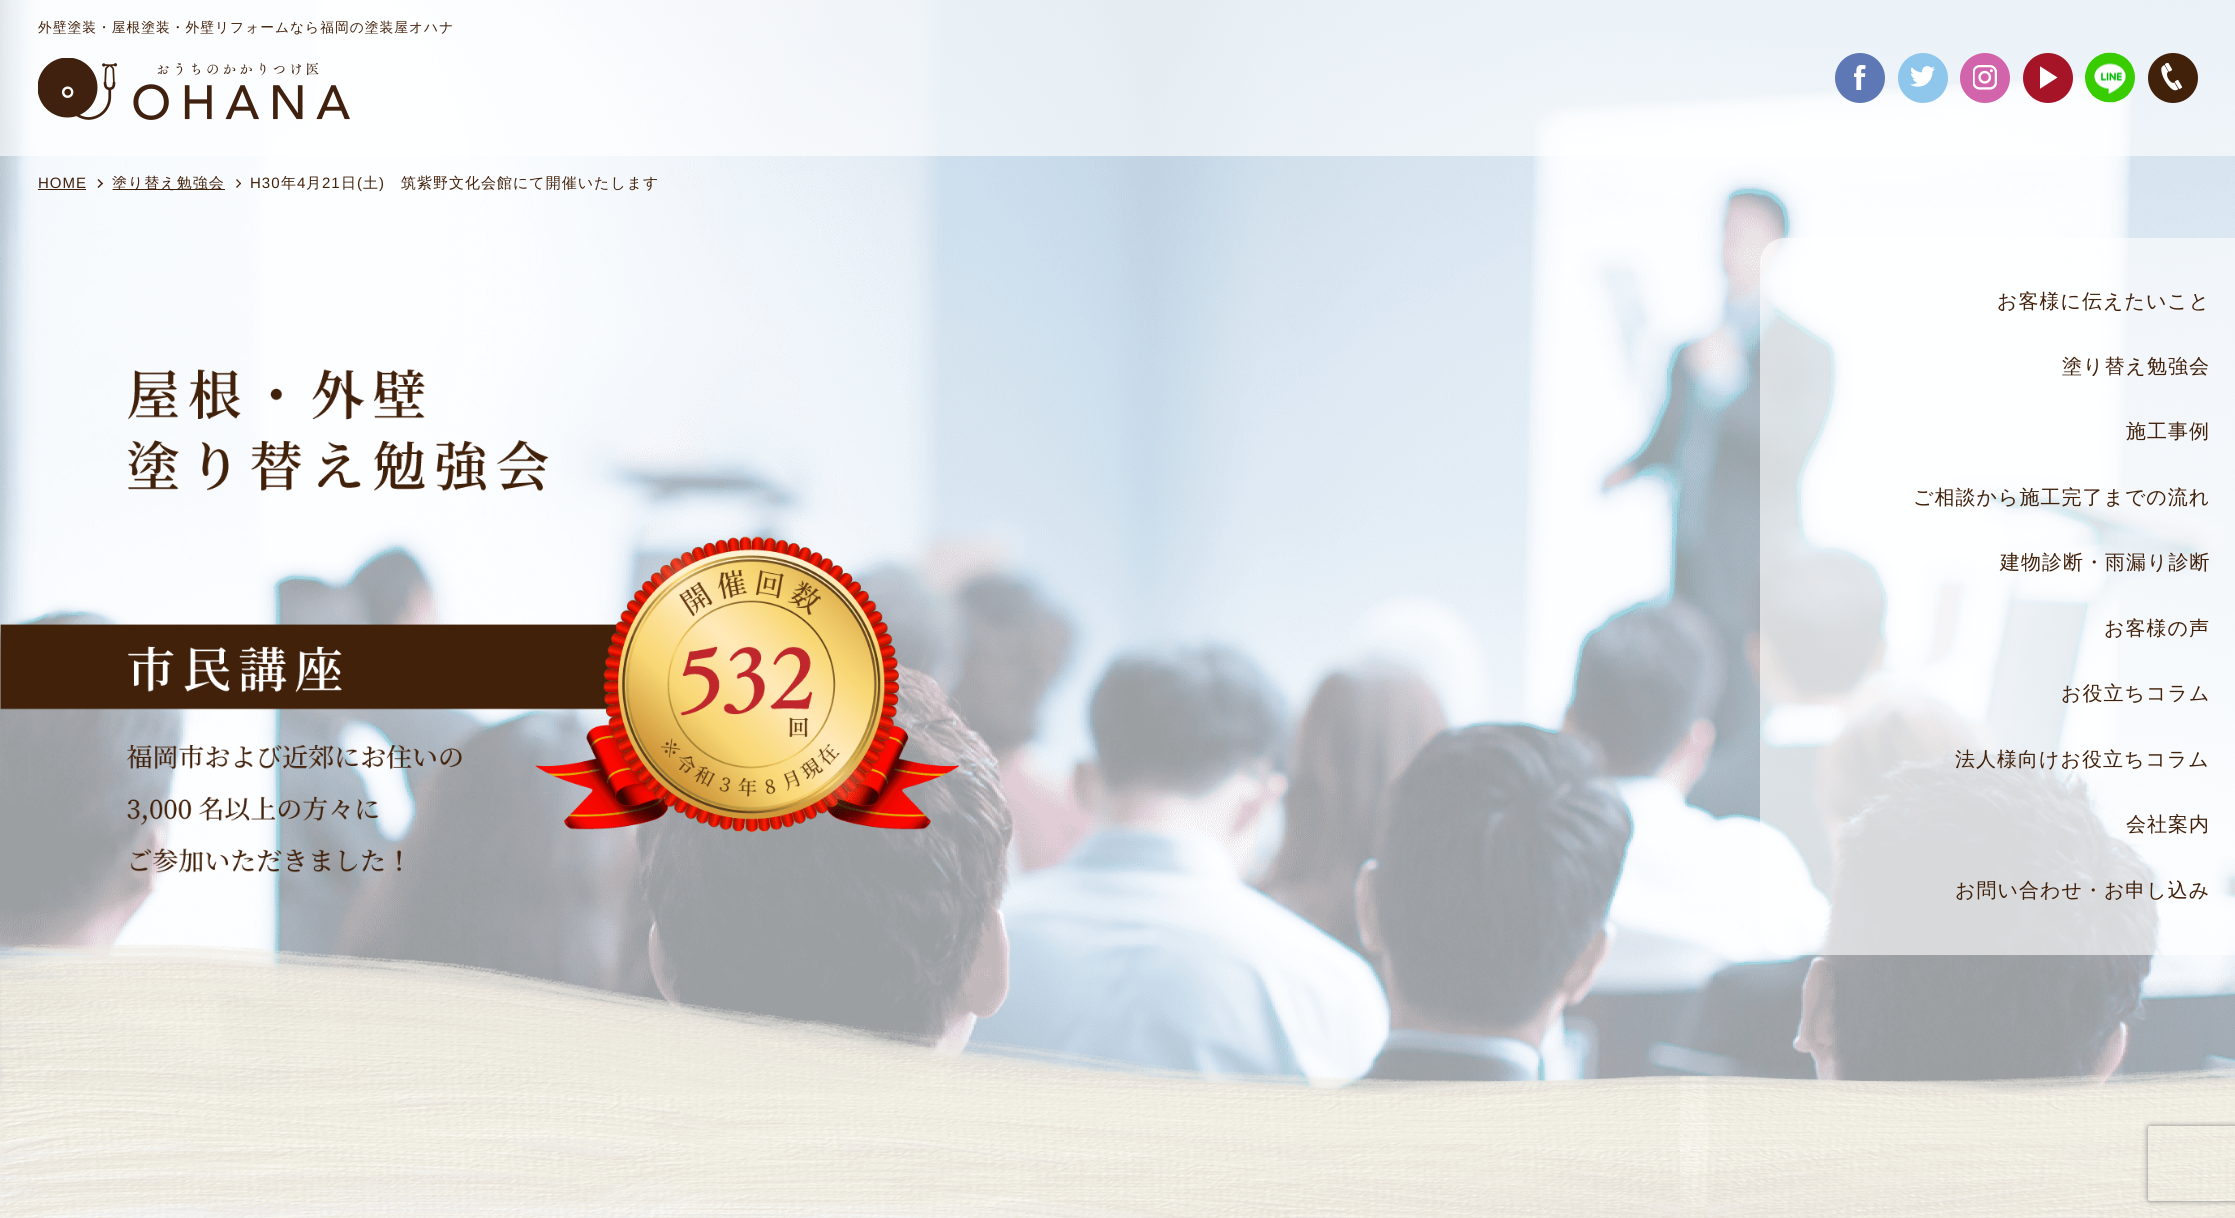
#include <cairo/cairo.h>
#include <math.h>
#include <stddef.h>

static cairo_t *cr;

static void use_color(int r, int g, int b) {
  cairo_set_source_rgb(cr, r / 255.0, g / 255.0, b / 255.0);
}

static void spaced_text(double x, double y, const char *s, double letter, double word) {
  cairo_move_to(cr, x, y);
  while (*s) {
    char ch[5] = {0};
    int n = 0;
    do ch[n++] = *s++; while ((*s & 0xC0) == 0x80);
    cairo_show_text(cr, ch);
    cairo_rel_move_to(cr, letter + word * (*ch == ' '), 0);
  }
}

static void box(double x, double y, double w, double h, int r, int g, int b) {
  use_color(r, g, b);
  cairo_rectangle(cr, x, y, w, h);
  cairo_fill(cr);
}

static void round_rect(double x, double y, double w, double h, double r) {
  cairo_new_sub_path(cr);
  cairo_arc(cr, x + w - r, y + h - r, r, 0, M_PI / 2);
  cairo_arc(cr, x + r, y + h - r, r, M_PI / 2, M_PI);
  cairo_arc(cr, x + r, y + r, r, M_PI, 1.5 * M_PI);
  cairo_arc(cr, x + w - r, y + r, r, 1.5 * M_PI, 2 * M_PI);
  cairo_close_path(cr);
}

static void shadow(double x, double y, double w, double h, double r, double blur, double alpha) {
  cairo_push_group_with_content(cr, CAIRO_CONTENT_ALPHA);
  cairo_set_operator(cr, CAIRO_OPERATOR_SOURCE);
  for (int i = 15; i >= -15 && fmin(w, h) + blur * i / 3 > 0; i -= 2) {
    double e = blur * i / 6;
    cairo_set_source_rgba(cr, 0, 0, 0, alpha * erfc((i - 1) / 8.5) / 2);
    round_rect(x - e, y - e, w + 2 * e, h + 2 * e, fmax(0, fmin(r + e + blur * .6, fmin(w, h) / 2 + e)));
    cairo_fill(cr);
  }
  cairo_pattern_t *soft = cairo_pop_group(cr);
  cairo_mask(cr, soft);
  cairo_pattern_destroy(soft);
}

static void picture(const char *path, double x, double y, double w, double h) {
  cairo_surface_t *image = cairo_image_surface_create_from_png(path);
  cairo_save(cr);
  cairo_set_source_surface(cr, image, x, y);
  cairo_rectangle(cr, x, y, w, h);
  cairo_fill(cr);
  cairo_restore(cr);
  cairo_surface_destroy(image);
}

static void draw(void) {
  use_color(255, 255, 255);
  cairo_paint(cr);
  picture("img_08.png", 0, 0, 2235, 1094);
  cairo_set_source_rgba(cr, 1, 1, 1, 0.6);
  cairo_rectangle(cr, 0, 0, 2235, 156);
  cairo_fill(cr);
  picture("img_01.png", 38, 58, 312, 62);
  use_color(94, 120, 182);
  cairo_arc(cr, 1860, 78, 25, 0, 2 * M_PI);
  cairo_fill(cr);
  picture("img_02.png", 1854, 65, 12, 25);
  use_color(143, 199, 236);
  cairo_arc(cr, 1923, 78, 25, 0, 2 * M_PI);
  cairo_fill(cr);
  picture("img_03.png", 1910, 66, 25, 21);
  use_color(209, 100, 171);
  cairo_arc(cr, 1985, 78, 25, 0, 2 * M_PI);
  cairo_fill(cr);
  picture("img_04.png", 1973, 65, 24, 25);
  use_color(166, 21, 39);
  cairo_arc(cr, 2048, 78, 25, 0, 2 * M_PI);
  cairo_fill(cr);
  picture("img_05.png", 2040, 66, 18, 23);
  picture("img_06.png", 2085, 52, 50, 51);
  use_color(66, 33, 11);
  cairo_arc(cr, 2173, 78, 25, 0, 2 * M_PI);
  cairo_fill(cr);
  picture("img_07.png", 2161, 63, 22, 28);
  picture("img_10.png", 0, 1093, 2235, 125);
  picture("img_11.png", 0, 944, 2235, 274);
  cairo_set_source_rgba(cr, 1, 1, 1, 0.6);
  cairo_new_path(cr);
  cairo_move_to(cr, 1785, 238);
  cairo_line_to(cr, 2235, 238);
  cairo_line_to(cr, 2235, 955);
  cairo_line_to(cr, 1785, 955);
  cairo_curve_to(cr, 1771, 955, 1760, 944, 1760, 930);
  cairo_line_to(cr, 1760, 263);
  cairo_curve_to(cr, 1760, 249, 1771, 238, 1785, 238);
  cairo_close_path(cr);
  cairo_fill(cr);
  picture("img_09.png", 0, 369, 959, 562);
  box(38, 189, 48, 1, 66, 33, 11);
  cairo_new_path(cr);
  cairo_move_to(cr, 98.5, 179);
  cairo_line_to(cr, 103, 183.5);
  cairo_line_to(cr, 102, 184.5);
  cairo_line_to(cr, 97.5, 180);
  cairo_close_path(cr);
  cairo_fill(cr);
  cairo_new_path(cr);
  cairo_move_to(cr, 102, 182.5);
  cairo_line_to(cr, 103, 183.5);
  cairo_line_to(cr, 98.5, 188);
  cairo_line_to(cr, 97.5, 187);
  cairo_close_path(cr);
  cairo_fill(cr);
  box(113, 189, 112, 1, 66, 33, 11);
  cairo_new_path(cr);
  cairo_move_to(cr, 237, 179);
  cairo_line_to(cr, 241, 183.5);
  cairo_line_to(cr, 240.5, 184.5);
  cairo_line_to(cr, 236, 180);
  cairo_close_path(cr);
  cairo_fill(cr);
  cairo_new_path(cr);
  cairo_move_to(cr, 240.5, 182.5);
  cairo_line_to(cr, 241, 183.5);
  cairo_line_to(cr, 237, 188);
  cairo_line_to(cr, 236, 187);
  cairo_close_path(cr);
  cairo_fill(cr);
  cairo_save(cr);
  cairo_set_fill_rule(cr, CAIRO_FILL_RULE_EVEN_ODD);
  cairo_new_path(cr);
  cairo_move_to(cr, 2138, 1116);
  cairo_line_to(cr, 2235, 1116);
  cairo_line_to(cr, 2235, 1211);
  cairo_line_to(cr, 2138, 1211);
  cairo_close_path(cr);
  cairo_move_to(cr, 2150.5, 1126);
  cairo_line_to(cr, 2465.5, 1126);
  cairo_curve_to(cr, 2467, 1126, 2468, 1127, 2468, 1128.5);
  cairo_line_to(cr, 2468, 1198.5);
  cairo_curve_to(cr, 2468, 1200, 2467, 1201, 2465.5, 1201);
  cairo_line_to(cr, 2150.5, 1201);
  cairo_curve_to(cr, 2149, 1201, 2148, 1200, 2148, 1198.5);
  cairo_line_to(cr, 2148, 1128.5);
  cairo_curve_to(cr, 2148, 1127, 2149, 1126, 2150.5, 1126);
  cairo_close_path(cr);
  cairo_clip(cr);
  use_color(128, 128, 128);
  shadow(2148, 1126, 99, 75, 2.5, 3, 1);
  cairo_restore(cr);
  cairo_select_font_face(cr, "WenQuanYi Zen Hei Medium", CAIRO_FONT_SLANT_NORMAL, CAIRO_FONT_WEIGHT_NORMAL);
  cairo_set_font_size(cr, 13.75);
  spaced_text(38, 32, "外壁塗装・屋根塗装・外壁リフォームなら福岡の塗装屋オハナ", 1, 0);
  cairo_set_font_size(cr, 20);
  spaced_text(1997, 308, "お客様に伝えたいこと", 1, 0);
  spaced_text(2062, 373, "塗り替え勉強会", 1, 0);
  spaced_text(2126, 438, "施工事例", 1, 0);
  spaced_text(1913, 504, "ご相談から施工完了までの流れ", 1, 0);
  spaced_text(2000, 569, "建物診断・雨漏り診断", 1, 0);
  spaced_text(2104, 635, "お客様の声", 1, 0);
  spaced_text(2061, 700, "お役立ちコラム", 1, 0);
  spaced_text(1955, 766, "法人様向けお役立ちコラム", 1, 0);
  spaced_text(2126, 831, "会社案内", 1, 0);
  spaced_text(1955, 897, "お問い合わせ・お申し込み", 1, 0);
  cairo_select_font_face(cr, "Liberation Sans", CAIRO_FONT_SLANT_NORMAL, CAIRO_FONT_WEIGHT_NORMAL);
  cairo_set_font_size(cr, 15);
  spaced_text(38, 188, "HOME", 1, 0);
  cairo_select_font_face(cr, "WenQuanYi Zen Hei Medium", CAIRO_FONT_SLANT_NORMAL, CAIRO_FONT_WEIGHT_NORMAL);
  spaced_text(112, 188, "塗り替え勉強会", 1, 0);
  cairo_select_font_face(cr, "Liberation Sans", CAIRO_FONT_SLANT_NORMAL, CAIRO_FONT_WEIGHT_NORMAL);
  spaced_text(250, 188, "H30", 1, 0);
  cairo_select_font_face(cr, "WenQuanYi Zen Hei Medium", CAIRO_FONT_SLANT_NORMAL, CAIRO_FONT_WEIGHT_NORMAL);
  spaced_text(281, 188, "年", 1, 0);
  cairo_select_font_face(cr, "Liberation Sans", CAIRO_FONT_SLANT_NORMAL, CAIRO_FONT_WEIGHT_NORMAL);
  spaced_text(297, 188, "4", 1, 0);
  cairo_select_font_face(cr, "WenQuanYi Zen Hei Medium", CAIRO_FONT_SLANT_NORMAL, CAIRO_FONT_WEIGHT_NORMAL);
  spaced_text(306, 188, "月", 1, 0);
  cairo_select_font_face(cr, "Liberation Sans", CAIRO_FONT_SLANT_NORMAL, CAIRO_FONT_WEIGHT_NORMAL);
  spaced_text(322, 188, "21", 1, 0);
  cairo_select_font_face(cr, "WenQuanYi Zen Hei Medium", CAIRO_FONT_SLANT_NORMAL, CAIRO_FONT_WEIGHT_NORMAL);
  spaced_text(341, 188, "日", 1, 0);
  cairo_select_font_face(cr, "Liberation Sans", CAIRO_FONT_SLANT_NORMAL, CAIRO_FONT_WEIGHT_NORMAL);
  spaced_text(357, 188, "(", 1, 0);
  cairo_select_font_face(cr, "WenQuanYi Zen Hei Medium", CAIRO_FONT_SLANT_NORMAL, CAIRO_FONT_WEIGHT_NORMAL);
  spaced_text(363, 188, "土", 1, 0);
  cairo_select_font_face(cr, "Liberation Sans", CAIRO_FONT_SLANT_NORMAL, CAIRO_FONT_WEIGHT_NORMAL);
  spaced_text(379, 188, ")", 1, 0);
  cairo_select_font_face(cr, "WenQuanYi Zen Hei Medium", CAIRO_FONT_SLANT_NORMAL, CAIRO_FONT_WEIGHT_NORMAL);
  spaced_text(401, 188, "筑紫野文化会館にて開催いたします", 1, 0);
}

int main(void) {
  cairo_surface_t *surface = cairo_image_surface_create(CAIRO_FORMAT_RGB24, 2235, 1218);
  cr = cairo_create(surface);
  cairo_font_options_t *options = cairo_font_options_create();
  cairo_font_options_set_hint_metrics(options, CAIRO_HINT_METRICS_OFF);
  cairo_font_options_set_hint_style(options, CAIRO_HINT_STYLE_NONE);
  cairo_set_font_options(cr, options);
  cairo_set_miter_limit(cr, 4);
  draw();
  cairo_surface_write_to_png(surface, "out.png");
  cairo_font_options_destroy(options);
  cairo_destroy(cr);
  cairo_surface_destroy(surface);
  return 0;
}
